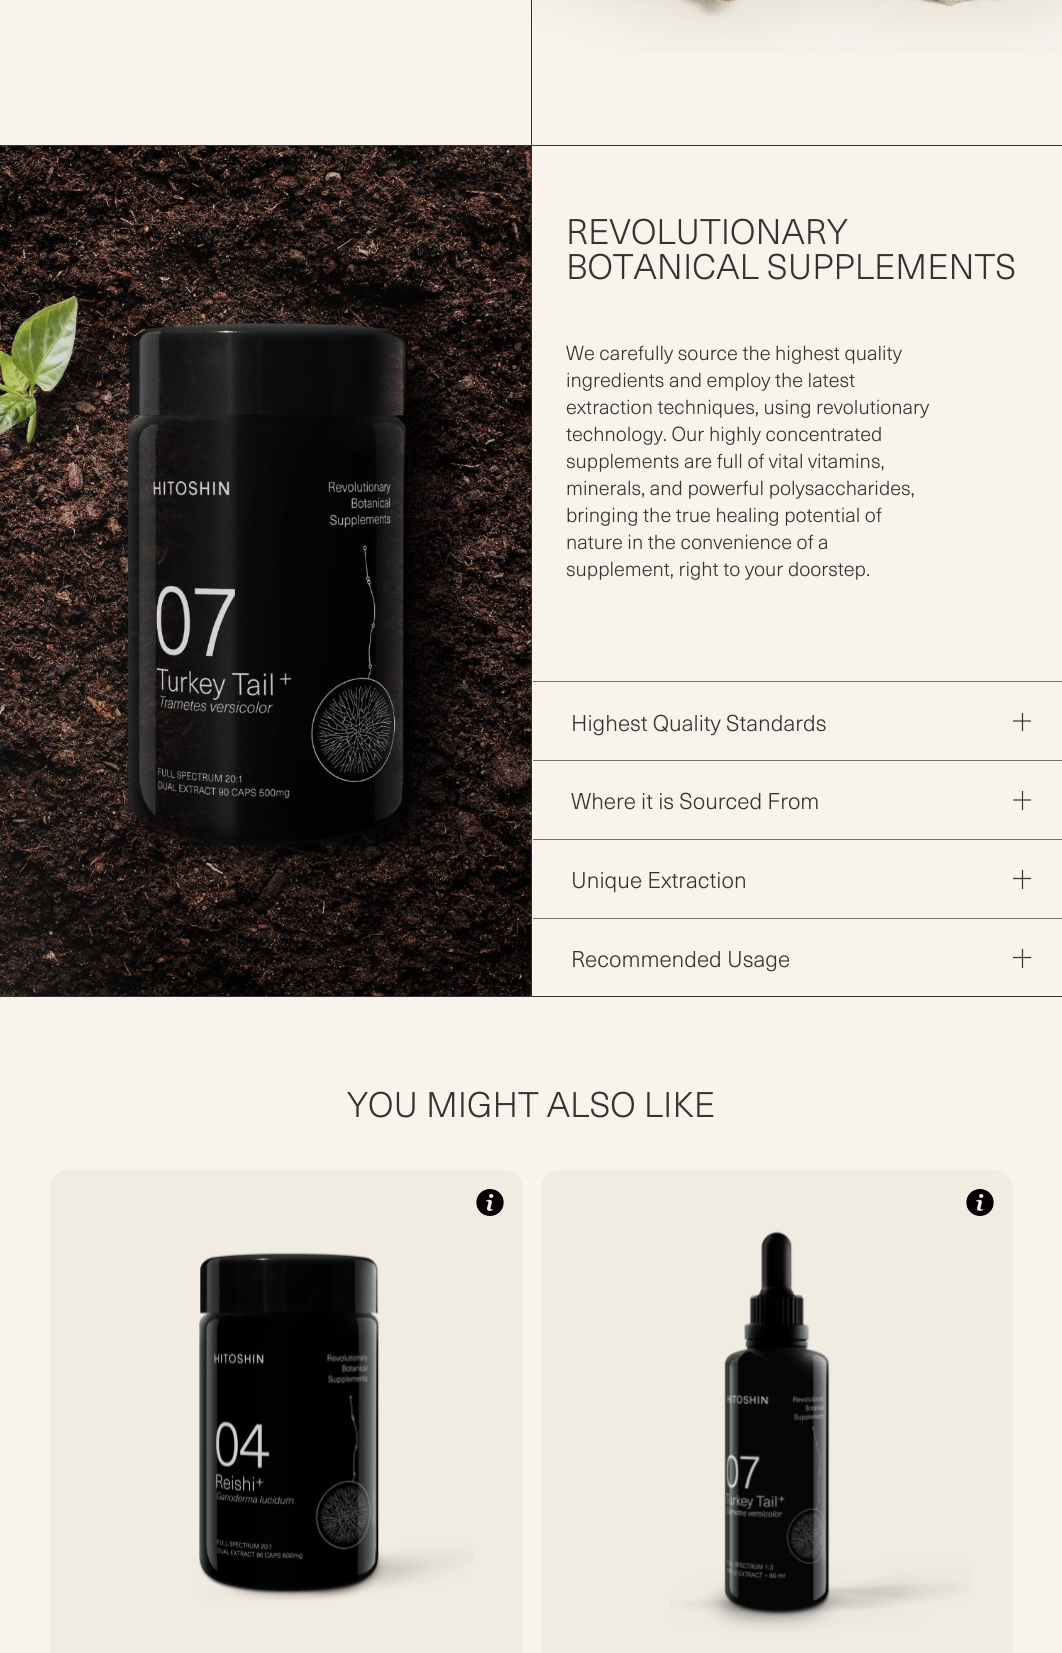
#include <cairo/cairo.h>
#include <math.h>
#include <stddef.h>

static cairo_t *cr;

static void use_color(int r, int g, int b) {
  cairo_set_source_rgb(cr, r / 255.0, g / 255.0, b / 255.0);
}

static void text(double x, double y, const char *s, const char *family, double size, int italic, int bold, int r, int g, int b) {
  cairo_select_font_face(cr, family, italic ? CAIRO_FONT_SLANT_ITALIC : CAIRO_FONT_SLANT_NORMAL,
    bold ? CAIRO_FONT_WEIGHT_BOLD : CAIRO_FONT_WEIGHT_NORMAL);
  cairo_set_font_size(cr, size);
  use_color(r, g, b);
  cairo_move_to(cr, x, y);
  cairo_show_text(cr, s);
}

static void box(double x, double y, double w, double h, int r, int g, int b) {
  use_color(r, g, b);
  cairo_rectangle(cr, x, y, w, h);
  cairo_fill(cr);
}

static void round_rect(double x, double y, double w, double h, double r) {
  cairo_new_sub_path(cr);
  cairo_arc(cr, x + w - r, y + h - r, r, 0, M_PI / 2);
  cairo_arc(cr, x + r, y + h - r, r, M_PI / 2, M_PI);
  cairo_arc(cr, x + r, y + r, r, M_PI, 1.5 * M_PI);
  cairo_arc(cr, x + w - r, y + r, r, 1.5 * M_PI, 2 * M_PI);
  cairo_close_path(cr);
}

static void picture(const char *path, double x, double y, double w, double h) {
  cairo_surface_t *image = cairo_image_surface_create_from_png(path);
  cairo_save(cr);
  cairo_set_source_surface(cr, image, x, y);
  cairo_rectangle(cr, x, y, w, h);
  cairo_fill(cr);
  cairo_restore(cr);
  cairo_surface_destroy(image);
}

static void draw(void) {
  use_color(248, 244, 236);
  cairo_paint(cr);
  box(0, 145, 1062, 1, 51, 51, 51);
  box(531, 0, 1, 145, 51, 51, 51);
  picture("img_01.png", 533, 0, 529, 53);
  box(0, 996, 1062, 1, 51, 51, 51);
  box(531, 146, 1, 850, 51, 51, 51);
  picture("img_02.png", 0, 146, 532, 850);
  box(533, 681, 529, 1, 112, 112, 112);
  cairo_save(cr);
  cairo_rectangle(cr, 1013, 713, 18, 18);
  cairo_clip(cr);
  cairo_new_path(cr);
  cairo_move_to(cr, 1006, 721);
  cairo_line_to(cr, 1038.5, 721);
  cairo_move_to(cr, 1022.5, 705);
  cairo_line_to(cr, 1022.5, 737.5);
  use_color(51, 51, 51);
  cairo_set_line_width(cr, 1.2);
  cairo_set_line_cap(cr, CAIRO_LINE_CAP_ROUND);
  cairo_stroke(cr);
  cairo_restore(cr);
  box(533, 760, 529, 1, 112, 112, 112);
  cairo_save(cr);
  cairo_rectangle(cr, 1013, 791, 18, 19);
  cairo_clip(cr);
  cairo_new_path(cr);
  cairo_move_to(cr, 1006, 800);
  cairo_line_to(cr, 1038.5, 800);
  cairo_move_to(cr, 1022.5, 783.5);
  cairo_line_to(cr, 1022.5, 816);
  use_color(51, 51, 51);
  cairo_set_line_width(cr, 1.2);
  cairo_set_line_cap(cr, CAIRO_LINE_CAP_ROUND);
  cairo_stroke(cr);
  cairo_restore(cr);
  box(533, 839, 529, 1, 112, 112, 112);
  cairo_save(cr);
  cairo_rectangle(cr, 1013, 870, 18, 19);
  cairo_clip(cr);
  cairo_new_path(cr);
  cairo_move_to(cr, 1006, 878.5);
  cairo_line_to(cr, 1038.5, 878.5);
  cairo_move_to(cr, 1022.5, 862.5);
  cairo_line_to(cr, 1022.5, 895);
  use_color(51, 51, 51);
  cairo_set_line_width(cr, 1.2);
  cairo_set_line_cap(cr, CAIRO_LINE_CAP_ROUND);
  cairo_stroke(cr);
  cairo_restore(cr);
  box(533, 918, 529, 1, 112, 112, 112);
  cairo_save(cr);
  cairo_rectangle(cr, 1013, 949, 18, 19);
  cairo_clip(cr);
  cairo_new_path(cr);
  cairo_move_to(cr, 1006, 957.5);
  cairo_line_to(cr, 1038.5, 957.5);
  cairo_move_to(cr, 1022.5, 941);
  cairo_line_to(cr, 1022.5, 973.5);
  use_color(51, 51, 51);
  cairo_set_line_width(cr, 1.2);
  cairo_set_line_cap(cr, CAIRO_LINE_CAP_ROUND);
  cairo_stroke(cr);
  cairo_restore(cr);
  use_color(241, 236, 225);
  round_rect(50, 1170, 473, 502, 19);
  cairo_fill(cr);
  picture("img_03.png", 476, 1189, 28, 27);
  picture("img_04.png", 198, 1252, 275, 349);
  round_rect(541, 1170, 472, 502, 19);
  cairo_fill(cr);
  picture("img_03.png", 966, 1189, 28, 27);
  picture("img_05.png", 670, 1231, 303, 402);
  text(566, 244, "REVOLUTIONARY", "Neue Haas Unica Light", 35, 0, 0, 51, 51, 51);
  text(566, 279, "BOTANICAL SUPPLEMENTS", "Neue Haas Unica Light", 35, 0, 0, 51, 51, 51);
  text(566, 360, "We carefully source the highest quality", "Neue Haas Unica Light", 20, 0, 0, 51, 51, 51);
  text(566, 387, "ingredients and employ the latest", "Neue Haas Unica Light", 20, 0, 0, 51, 51, 51);
  text(566, 414, "extraction techniques, using revolutionary", "Neue Haas Unica Light", 20, 0, 0, 51, 51, 51);
  text(566, 441, "technology. Our highly concentrated", "Neue Haas Unica Light", 20, 0, 0, 51, 51, 51);
  text(566, 468, "supplements are full of vital vitamins,", "Neue Haas Unica Light", 20, 0, 0, 51, 51, 51);
  text(566, 495, "minerals, and powerful polysaccharides,", "Neue Haas Unica Light", 20, 0, 0, 51, 51, 51);
  text(566, 522, "bringing the true healing potential of", "Neue Haas Unica Light", 20, 0, 0, 51, 51, 51);
  text(566, 549, "nature in the convenience of a", "Neue Haas Unica Light", 20, 0, 0, 51, 51, 51);
  text(566, 576, "supplement, right to your doorstep.", "Neue Haas Unica Light", 20, 0, 0, 51, 51, 51);
  text(571, 731, "Highest Quality Standards", "Neue Haas Unica Light", 22.5, 0, 0, 51, 51, 51);
  text(571, 809, "Where it is Sourced From", "Neue Haas Unica Light", 22.5, 0, 0, 51, 51, 51);
  text(571, 888, "Unique Extraction", "Neue Haas Unica Light", 22.5, 0, 0, 51, 51, 51);
  text(571, 967, "Recommended Usage", "Neue Haas Unica Light", 22.5, 0, 0, 51, 51, 51);
  text(347, 1117, "YOU MIGHT ALSO LIKE", "Neue Haas Unica Light", 35, 0, 0, 51, 51, 51);
}

int main(void) {
  cairo_surface_t *surface = cairo_image_surface_create(CAIRO_FORMAT_RGB24, 1062, 1653);
  cr = cairo_create(surface);
  cairo_font_options_t *options = cairo_font_options_create();
  cairo_font_options_set_hint_metrics(options, CAIRO_HINT_METRICS_OFF);
  cairo_font_options_set_hint_style(options, CAIRO_HINT_STYLE_NONE);
  cairo_set_font_options(cr, options);
  cairo_set_miter_limit(cr, 4);
  draw();
  cairo_surface_write_to_png(surface, "out.png");
  cairo_font_options_destroy(options);
  cairo_destroy(cr);
  cairo_surface_destroy(surface);
  return 0;
}
